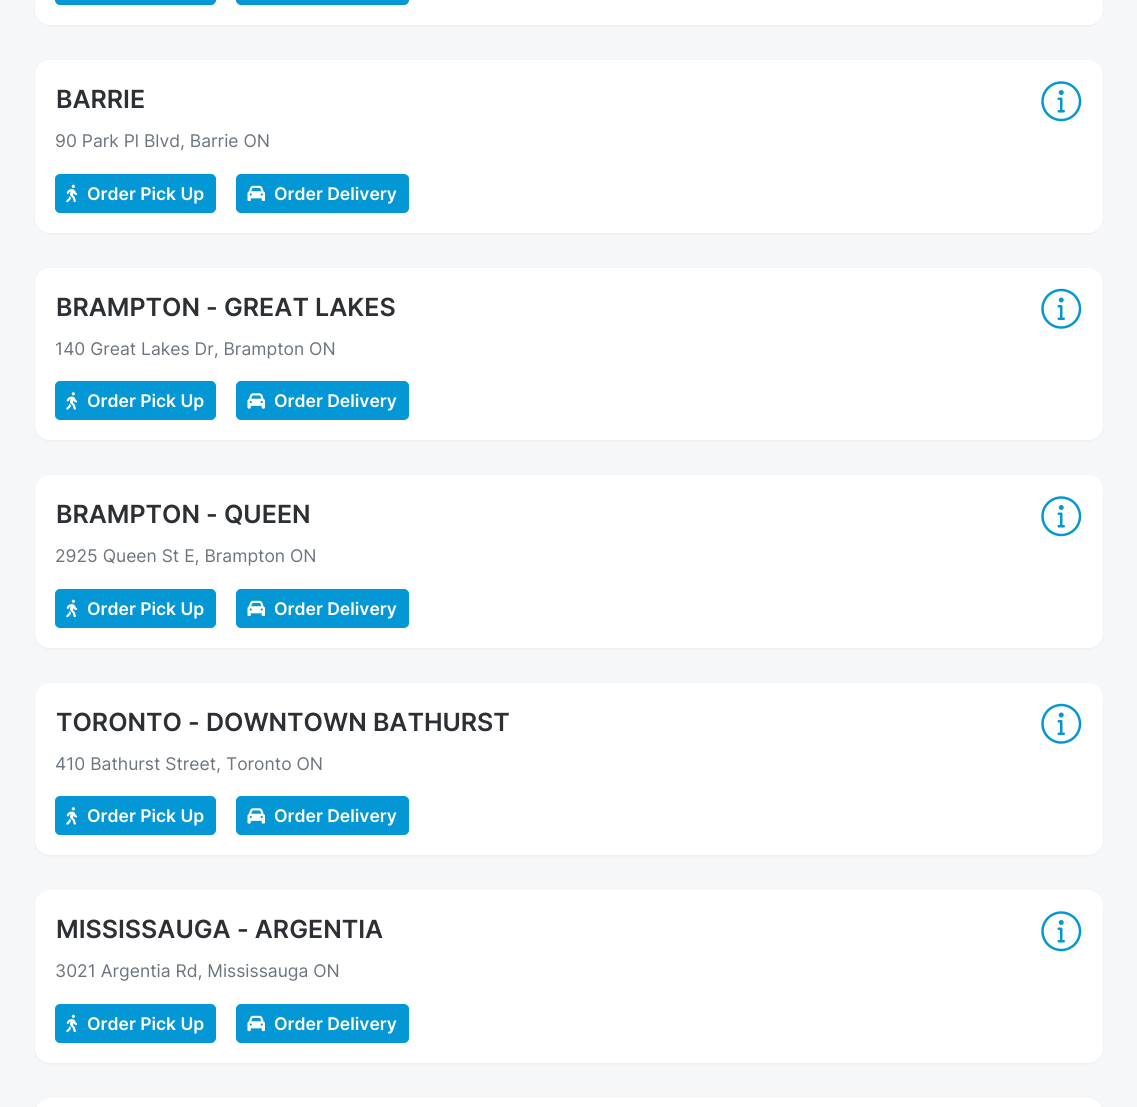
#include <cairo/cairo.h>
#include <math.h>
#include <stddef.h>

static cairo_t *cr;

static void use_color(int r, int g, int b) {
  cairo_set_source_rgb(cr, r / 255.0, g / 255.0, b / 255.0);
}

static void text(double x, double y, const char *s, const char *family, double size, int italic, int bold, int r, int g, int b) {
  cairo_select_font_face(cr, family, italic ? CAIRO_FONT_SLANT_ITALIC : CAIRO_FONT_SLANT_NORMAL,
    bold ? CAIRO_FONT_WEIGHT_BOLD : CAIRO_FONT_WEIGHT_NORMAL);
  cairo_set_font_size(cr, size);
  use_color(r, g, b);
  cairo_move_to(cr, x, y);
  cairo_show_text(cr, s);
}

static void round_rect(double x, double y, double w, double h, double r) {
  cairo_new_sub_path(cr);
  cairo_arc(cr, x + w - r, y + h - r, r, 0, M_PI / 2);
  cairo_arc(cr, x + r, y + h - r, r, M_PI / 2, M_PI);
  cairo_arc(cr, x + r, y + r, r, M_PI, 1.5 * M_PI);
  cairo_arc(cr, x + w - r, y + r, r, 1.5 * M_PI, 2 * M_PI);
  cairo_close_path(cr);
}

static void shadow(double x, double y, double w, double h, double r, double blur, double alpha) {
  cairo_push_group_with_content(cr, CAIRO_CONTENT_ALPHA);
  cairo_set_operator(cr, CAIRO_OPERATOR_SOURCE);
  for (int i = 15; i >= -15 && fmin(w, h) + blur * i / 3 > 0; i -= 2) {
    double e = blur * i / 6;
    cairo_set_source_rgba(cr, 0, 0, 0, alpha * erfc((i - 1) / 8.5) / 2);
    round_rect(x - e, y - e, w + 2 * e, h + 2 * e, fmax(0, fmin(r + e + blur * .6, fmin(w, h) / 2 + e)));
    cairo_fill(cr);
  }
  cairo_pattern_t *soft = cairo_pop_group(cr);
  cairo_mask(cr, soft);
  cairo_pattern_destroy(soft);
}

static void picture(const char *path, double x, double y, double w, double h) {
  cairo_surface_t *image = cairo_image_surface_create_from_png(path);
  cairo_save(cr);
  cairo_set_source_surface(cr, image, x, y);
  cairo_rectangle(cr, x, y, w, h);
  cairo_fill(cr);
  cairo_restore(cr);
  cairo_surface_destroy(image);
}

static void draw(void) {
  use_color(246, 247, 249);
  cairo_paint(cr);
  use_color(220, 225, 232);
  shadow(35, -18, 1068, 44, 15, 1, 0.5);
  use_color(255, 255, 255);
  round_rect(35, -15, 1068, 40, 15);
  cairo_fill(cr);
  use_color(3, 151, 213);
  round_rect(55.5, -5.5, 160, 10, 4.5);
  cairo_fill_preserve(cr);
  cairo_set_line_width(cr, 1);
  cairo_stroke(cr);
  round_rect(236.5, -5.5, 172, 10, 4.5);
  cairo_fill_preserve(cr);
  cairo_stroke(cr);
  use_color(220, 225, 232);
  shadow(35, 61, 1068, 173, 15, 1, 0.5);
  use_color(255, 255, 255);
  round_rect(35, 60, 1068, 173, 15);
  cairo_fill(cr);
  picture("img_01.png", 1041, 81, 41, 41);
  use_color(3, 151, 213);
  round_rect(55.5, 174.5, 160, 38, 4.5);
  cairo_fill_preserve(cr);
  cairo_stroke(cr);
  picture("img_02.png", 66, 184, 12, 19);
  round_rect(236.5, 174.5, 172, 38, 4.5);
  cairo_fill_preserve(cr);
  cairo_stroke(cr);
  picture("img_03.png", 247, 185, 18, 17);
  use_color(220, 225, 232);
  shadow(35, 269, 1068, 172, 15, 1, 0.5);
  use_color(255, 255, 255);
  round_rect(35, 268, 1068, 172, 15);
  cairo_fill(cr);
  picture("img_04.png", 1041, 288, 41, 41);
  use_color(3, 151, 213);
  round_rect(55.5, 381.5, 160, 38, 4.5);
  cairo_fill_preserve(cr);
  cairo_stroke(cr);
  picture("img_05.png", 66, 392, 12, 18);
  round_rect(236.5, 381.5, 172, 38, 4.5);
  cairo_fill_preserve(cr);
  cairo_stroke(cr);
  picture("img_06.png", 247, 393, 18, 16);
  use_color(220, 225, 232);
  shadow(35, 476, 1068, 173, 15, 1, 0.5);
  use_color(255, 255, 255);
  round_rect(35, 475, 1068, 173, 15);
  cairo_fill(cr);
  picture("img_01.png", 1041, 496, 41, 41);
  use_color(3, 151, 213);
  round_rect(55.5, 589.5, 160, 38, 4.5);
  cairo_fill_preserve(cr);
  cairo_stroke(cr);
  picture("img_02.png", 66, 599, 12, 19);
  round_rect(236.5, 589.5, 172, 38, 4.5);
  cairo_fill_preserve(cr);
  cairo_stroke(cr);
  picture("img_03.png", 247, 600, 18, 17);
  use_color(220, 225, 232);
  shadow(35, 684, 1068, 172, 15, 1, 0.5);
  use_color(255, 255, 255);
  round_rect(35, 683, 1068, 172, 15);
  cairo_fill(cr);
  picture("img_04.png", 1041, 703, 41, 41);
  use_color(3, 151, 213);
  round_rect(55.5, 796.5, 160, 38, 4.5);
  cairo_fill_preserve(cr);
  cairo_stroke(cr);
  picture("img_05.png", 66, 807, 12, 18);
  round_rect(236.5, 796.5, 172, 38, 4.5);
  cairo_fill_preserve(cr);
  cairo_stroke(cr);
  picture("img_06.png", 247, 808, 18, 16);
  use_color(220, 225, 232);
  shadow(35, 891, 1068, 173, 15, 1, 0.5);
  use_color(255, 255, 255);
  round_rect(35, 890, 1068, 173, 15);
  cairo_fill(cr);
  picture("img_01.png", 1041, 911, 41, 41);
  use_color(3, 151, 213);
  round_rect(55.5, 1004.5, 160, 38, 4.5);
  cairo_fill_preserve(cr);
  cairo_stroke(cr);
  picture("img_02.png", 66, 1014, 12, 19);
  round_rect(236.5, 1004.5, 172, 38, 4.5);
  cairo_fill_preserve(cr);
  cairo_stroke(cr);
  picture("img_03.png", 247, 1015, 18, 17);
  use_color(220, 225, 232);
  shadow(35, 1099, 1068, 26, 15, 1, 0.5);
  use_color(255, 255, 255);
  round_rect(35, 1098, 1068, 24, 15);
  cairo_fill(cr);
  text(56, 108, "BARRIE", "Inter SemiBold", 25, 0, 0, 44, 48, 52);
  text(55, 147, "90 Park Pl Blvd, Barrie ON", "Inter", 17.5, 0, 0, 108, 117, 125);
  text(87, 200, "Order Pick Up", "Inter SemiBold", 17.5, 0, 0, 255, 255, 255);
  text(274, 200, "Order Delivery", "Inter SemiBold", 17.5, 0, 0, 255, 255, 255);
  text(56, 316, "BRAMPTON - GREAT LAKES", "Inter SemiBold", 25, 0, 0, 44, 48, 52);
  text(55, 355, "140 Great Lakes Dr, Brampton ON", "Inter", 17.5, 0, 0, 108, 117, 125);
  text(87, 407, "Order Pick Up", "Inter SemiBold", 17.5, 0, 0, 255, 255, 255);
  text(274, 407, "Order Delivery", "Inter SemiBold", 17.5, 0, 0, 255, 255, 255);
  text(56, 523, "BRAMPTON - QUEEN", "Inter SemiBold", 25, 0, 0, 44, 48, 52);
  text(55, 562, "2925 Queen St E, Brampton ON", "Inter", 17.5, 0, 0, 108, 117, 125);
  text(87, 615, "Order Pick Up", "Inter SemiBold", 17.5, 0, 0, 255, 255, 255);
  text(274, 615, "Order Delivery", "Inter SemiBold", 17.5, 0, 0, 255, 255, 255);
  text(56, 731, "TORONTO - DOWNTOWN BATHURST", "Inter SemiBold", 25, 0, 0, 44, 48, 52);
  text(55, 770, "410 Bathurst Street, Toronto ON", "Inter", 17.5, 0, 0, 108, 117, 125);
  text(87, 822, "Order Pick Up", "Inter SemiBold", 17.5, 0, 0, 255, 255, 255);
  text(274, 822, "Order Delivery", "Inter SemiBold", 17.5, 0, 0, 255, 255, 255);
  text(56, 938, "MISSISSAUGA - ARGENTIA", "Inter SemiBold", 25, 0, 0, 44, 48, 52);
  text(55, 977, "3021 Argentia Rd, Mississauga ON", "Inter", 17.5, 0, 0, 108, 117, 125);
  text(87, 1030, "Order Pick Up", "Inter SemiBold", 17.5, 0, 0, 255, 255, 255);
  text(274, 1030, "Order Delivery", "Inter SemiBold", 17.5, 0, 0, 255, 255, 255);
}

int main(void) {
  cairo_surface_t *surface = cairo_image_surface_create(CAIRO_FORMAT_RGB24, 1137, 1107);
  cr = cairo_create(surface);
  cairo_font_options_t *options = cairo_font_options_create();
  cairo_font_options_set_hint_metrics(options, CAIRO_HINT_METRICS_OFF);
  cairo_font_options_set_hint_style(options, CAIRO_HINT_STYLE_NONE);
  cairo_set_font_options(cr, options);
  cairo_set_miter_limit(cr, 4);
  draw();
  cairo_surface_write_to_png(surface, "out.png");
  cairo_font_options_destroy(options);
  cairo_destroy(cr);
  cairo_surface_destroy(surface);
  return 0;
}
